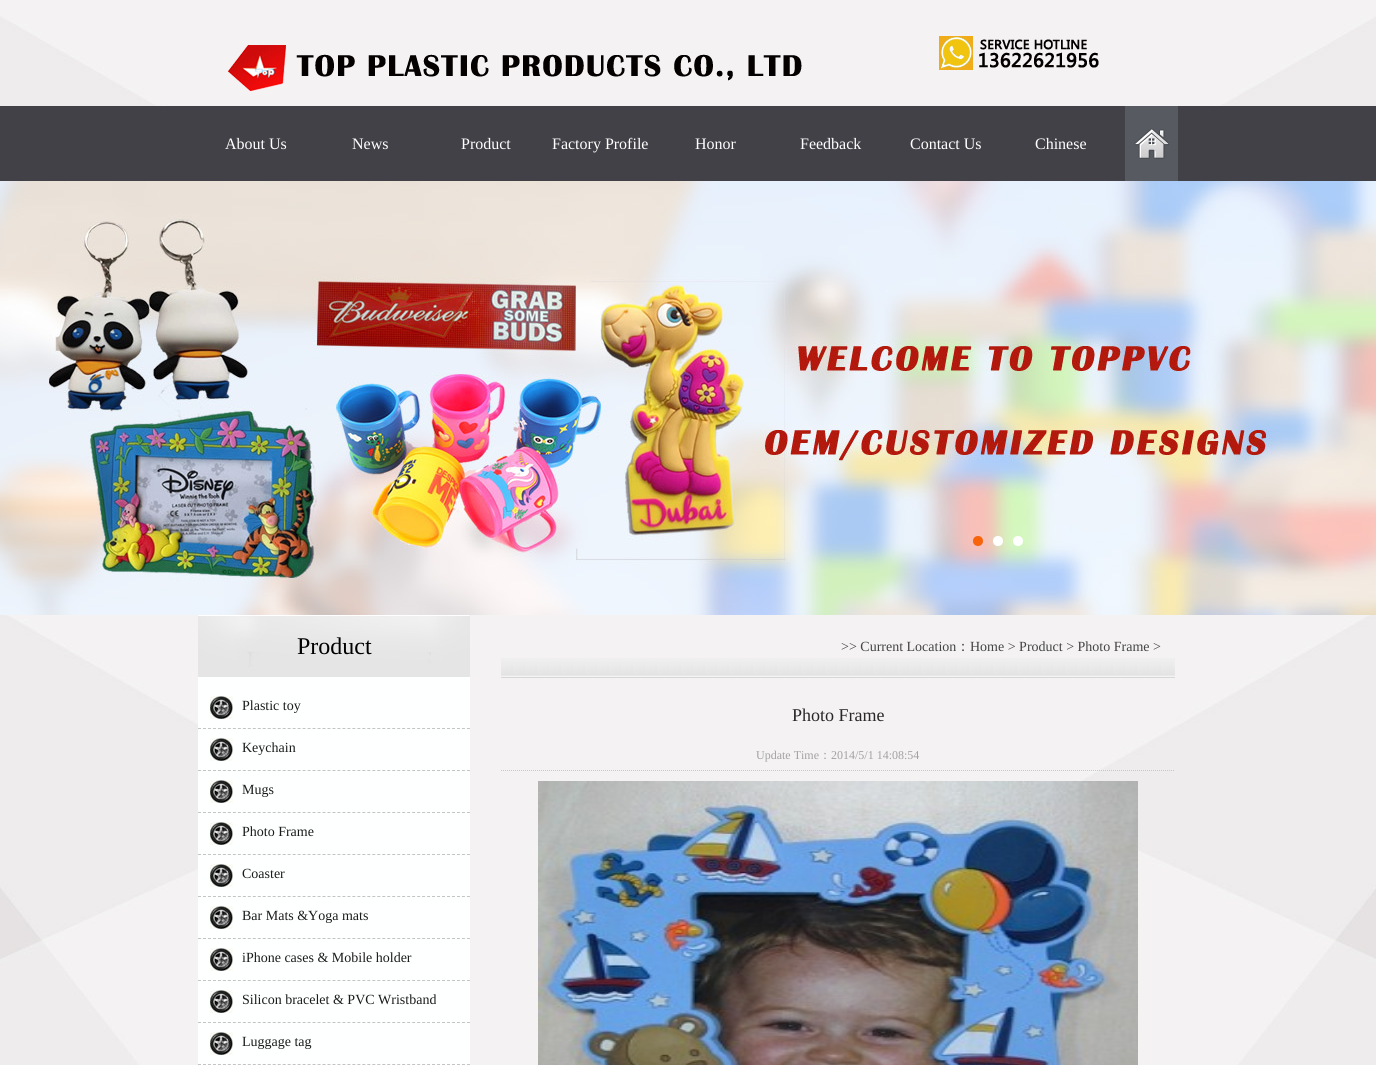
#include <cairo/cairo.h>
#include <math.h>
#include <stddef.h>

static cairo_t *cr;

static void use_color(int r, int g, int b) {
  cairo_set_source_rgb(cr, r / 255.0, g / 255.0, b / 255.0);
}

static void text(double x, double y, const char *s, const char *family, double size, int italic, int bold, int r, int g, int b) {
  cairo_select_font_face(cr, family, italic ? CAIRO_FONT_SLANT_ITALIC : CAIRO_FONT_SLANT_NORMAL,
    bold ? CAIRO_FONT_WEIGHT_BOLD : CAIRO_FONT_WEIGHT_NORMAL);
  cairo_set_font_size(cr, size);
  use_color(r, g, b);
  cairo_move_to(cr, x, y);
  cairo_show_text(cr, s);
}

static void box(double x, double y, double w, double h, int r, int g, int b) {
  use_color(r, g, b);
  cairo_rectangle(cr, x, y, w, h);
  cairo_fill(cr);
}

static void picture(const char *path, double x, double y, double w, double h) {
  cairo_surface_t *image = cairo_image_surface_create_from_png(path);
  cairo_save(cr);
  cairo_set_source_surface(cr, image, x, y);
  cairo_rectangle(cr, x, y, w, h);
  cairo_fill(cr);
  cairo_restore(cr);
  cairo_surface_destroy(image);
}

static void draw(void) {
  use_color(255, 255, 255);
  cairo_paint(cr);
  picture("img_01.png", 0, 0, 1376, 1065);
  picture("img_02.png", 228, 45, 574, 46);
  picture("img_03.png", 939, 36, 160, 34);
  box(0, 106, 1376, 75, 66, 65, 71);
  box(1125, 106, 53, 75, 87, 90, 97);
  picture("img_04.png", 1134, 128, 35, 31);
  picture("img_05.png", 0, 181, 1376, 434);
  use_color(247, 100, 11);
  cairo_arc(cr, 978, 541, 5, 0, 2 * M_PI);
  cairo_fill(cr);
  use_color(255, 255, 255);
  cairo_arc(cr, 998, 541, 5, 0, 2 * M_PI);
  cairo_fill(cr);
  cairo_arc(cr, 1018, 541, 5, 0, 2 * M_PI);
  cairo_fill(cr);
  picture("img_06.png", 198, 615, 272, 62);
  box(198, 677, 272, 388, 254, 255, 255);
  picture("img_07.png", 210, 696, 23, 23);
  cairo_new_path(cr);
  cairo_move_to(cr, 198, 728.5);
  cairo_line_to(cr, 470, 728.5);
  use_color(196, 196, 196);
  cairo_set_line_width(cr, 1);
  cairo_set_dash(cr, (double[]){3, 1.98}, 2, 0);
  cairo_stroke(cr);
  picture("img_07.png", 210, 738, 23, 23);
  cairo_new_path(cr);
  cairo_move_to(cr, 198, 770.5);
  cairo_line_to(cr, 470, 770.5);
  cairo_stroke(cr);
  picture("img_07.png", 210, 780, 23, 23);
  cairo_new_path(cr);
  cairo_move_to(cr, 198, 812.5);
  cairo_line_to(cr, 470, 812.5);
  cairo_stroke(cr);
  picture("img_07.png", 210, 822, 23, 23);
  cairo_new_path(cr);
  cairo_move_to(cr, 198, 854.5);
  cairo_line_to(cr, 470, 854.5);
  cairo_stroke(cr);
  picture("img_07.png", 210, 864, 23, 23);
  cairo_new_path(cr);
  cairo_move_to(cr, 198, 896.5);
  cairo_line_to(cr, 470, 896.5);
  cairo_stroke(cr);
  picture("img_07.png", 210, 906, 23, 23);
  cairo_new_path(cr);
  cairo_move_to(cr, 198, 938.5);
  cairo_line_to(cr, 470, 938.5);
  cairo_stroke(cr);
  picture("img_07.png", 210, 948, 23, 23);
  cairo_new_path(cr);
  cairo_move_to(cr, 198, 980.5);
  cairo_line_to(cr, 470, 980.5);
  cairo_stroke(cr);
  picture("img_07.png", 210, 990, 23, 23);
  cairo_new_path(cr);
  cairo_move_to(cr, 198, 1022.5);
  cairo_line_to(cr, 470, 1022.5);
  cairo_stroke(cr);
  picture("img_07.png", 210, 1032, 23, 23);
  cairo_new_path(cr);
  cairo_move_to(cr, 198, 1064.5);
  cairo_line_to(cr, 470, 1064.5);
  cairo_stroke(cr);
  picture("img_08.png", 501, 658, 674, 20);
  cairo_new_path(cr);
  cairo_move_to(cr, 501, 770.5);
  cairo_line_to(cr, 1175, 770.5);
  use_color(199, 199, 199);
  cairo_set_dash(cr, (double[]){1, 1}, 2, 0);
  cairo_stroke(cr);
  picture("img_09.png", 538, 781, 600, 284);
  text(225, 149, "About Us", "Liberation Serif", 16, 0, 0, 255, 255, 255);
  text(352, 149, "News", "Liberation Serif", 16, 0, 0, 255, 255, 255);
  text(461, 149, "Product", "Liberation Serif", 16, 0, 0, 255, 255, 255);
  text(552, 149, "Factory Profile", "Liberation Serif", 16, 0, 0, 255, 255, 255);
  text(695, 149, "Honor", "Liberation Serif", 16, 0, 0, 255, 255, 255);
  text(800, 149, "Feedback", "Liberation Serif", 16, 0, 0, 255, 255, 255);
  text(910, 149, "Contact Us", "Liberation Serif", 16, 0, 0, 255, 255, 255);
  text(1035, 149, "Chinese", "Liberation Serif", 16, 0, 0, 255, 255, 255);
  text(297, 654, "Product", "Liberation Serif", 24, 0, 0, 0, 0, 0);
  text(242, 710, "Plastic toy", "Liberation Serif", 14, 0, 0, 27, 27, 27);
  text(242, 752, "Keychain", "Liberation Serif", 14, 0, 0, 27, 27, 27);
  text(242, 794, "Mugs", "Liberation Serif", 14, 0, 0, 27, 27, 27);
  text(242, 836, "Photo Frame", "Liberation Serif", 14, 0, 0, 27, 27, 27);
  text(242, 878, "Coaster", "Liberation Serif", 14, 0, 0, 27, 27, 27);
  text(242, 920, "Bar Mats &Yoga mats", "Liberation Serif", 14, 0, 0, 27, 27, 27);
  text(242, 962, "iPhone cases & Mobile holder", "Liberation Serif", 14, 0, 0, 27, 27, 27);
  text(242, 1004, "Silicon bracelet & PVC Wristband", "Liberation Serif", 14, 0, 0, 27, 27, 27);
  text(242, 1046, "Luggage tag", "Liberation Serif", 14, 0, 0, 27, 27, 27);
  text(841, 651, ">> Current Location", "Liberation Serif", 14, 0, 0, 68, 68, 68);
  text(956, 651, "：", "WenQuanYi Zen Hei Medium", 14, 0, 0, 68, 68, 68);
  text(970, 651, "Home > Product > Photo Frame >", "Liberation Serif", 14, 0, 0, 68, 68, 68);
  text(792, 721, "Photo Frame", "Liberation Serif", 18, 0, 0, 40, 40, 39);
  text(756, 759, "Update Time", "Liberation Serif", 12, 0, 0, 162, 162, 162);
  text(819, 759, "：", "WenQuanYi Zen Hei Medium", 12, 0, 0, 162, 162, 162);
  text(831, 759, "2014/5/1 14:08:54", "Liberation Serif", 12, 0, 0, 162, 162, 162);
}

int main(void) {
  cairo_surface_t *surface = cairo_image_surface_create(CAIRO_FORMAT_RGB24, 1376, 1065);
  cr = cairo_create(surface);
  cairo_font_options_t *options = cairo_font_options_create();
  cairo_font_options_set_hint_metrics(options, CAIRO_HINT_METRICS_OFF);
  cairo_font_options_set_hint_style(options, CAIRO_HINT_STYLE_NONE);
  cairo_set_font_options(cr, options);
  cairo_set_miter_limit(cr, 4);
  draw();
  cairo_surface_write_to_png(surface, "out.png");
  cairo_font_options_destroy(options);
  cairo_destroy(cr);
  cairo_surface_destroy(surface);
  return 0;
}
